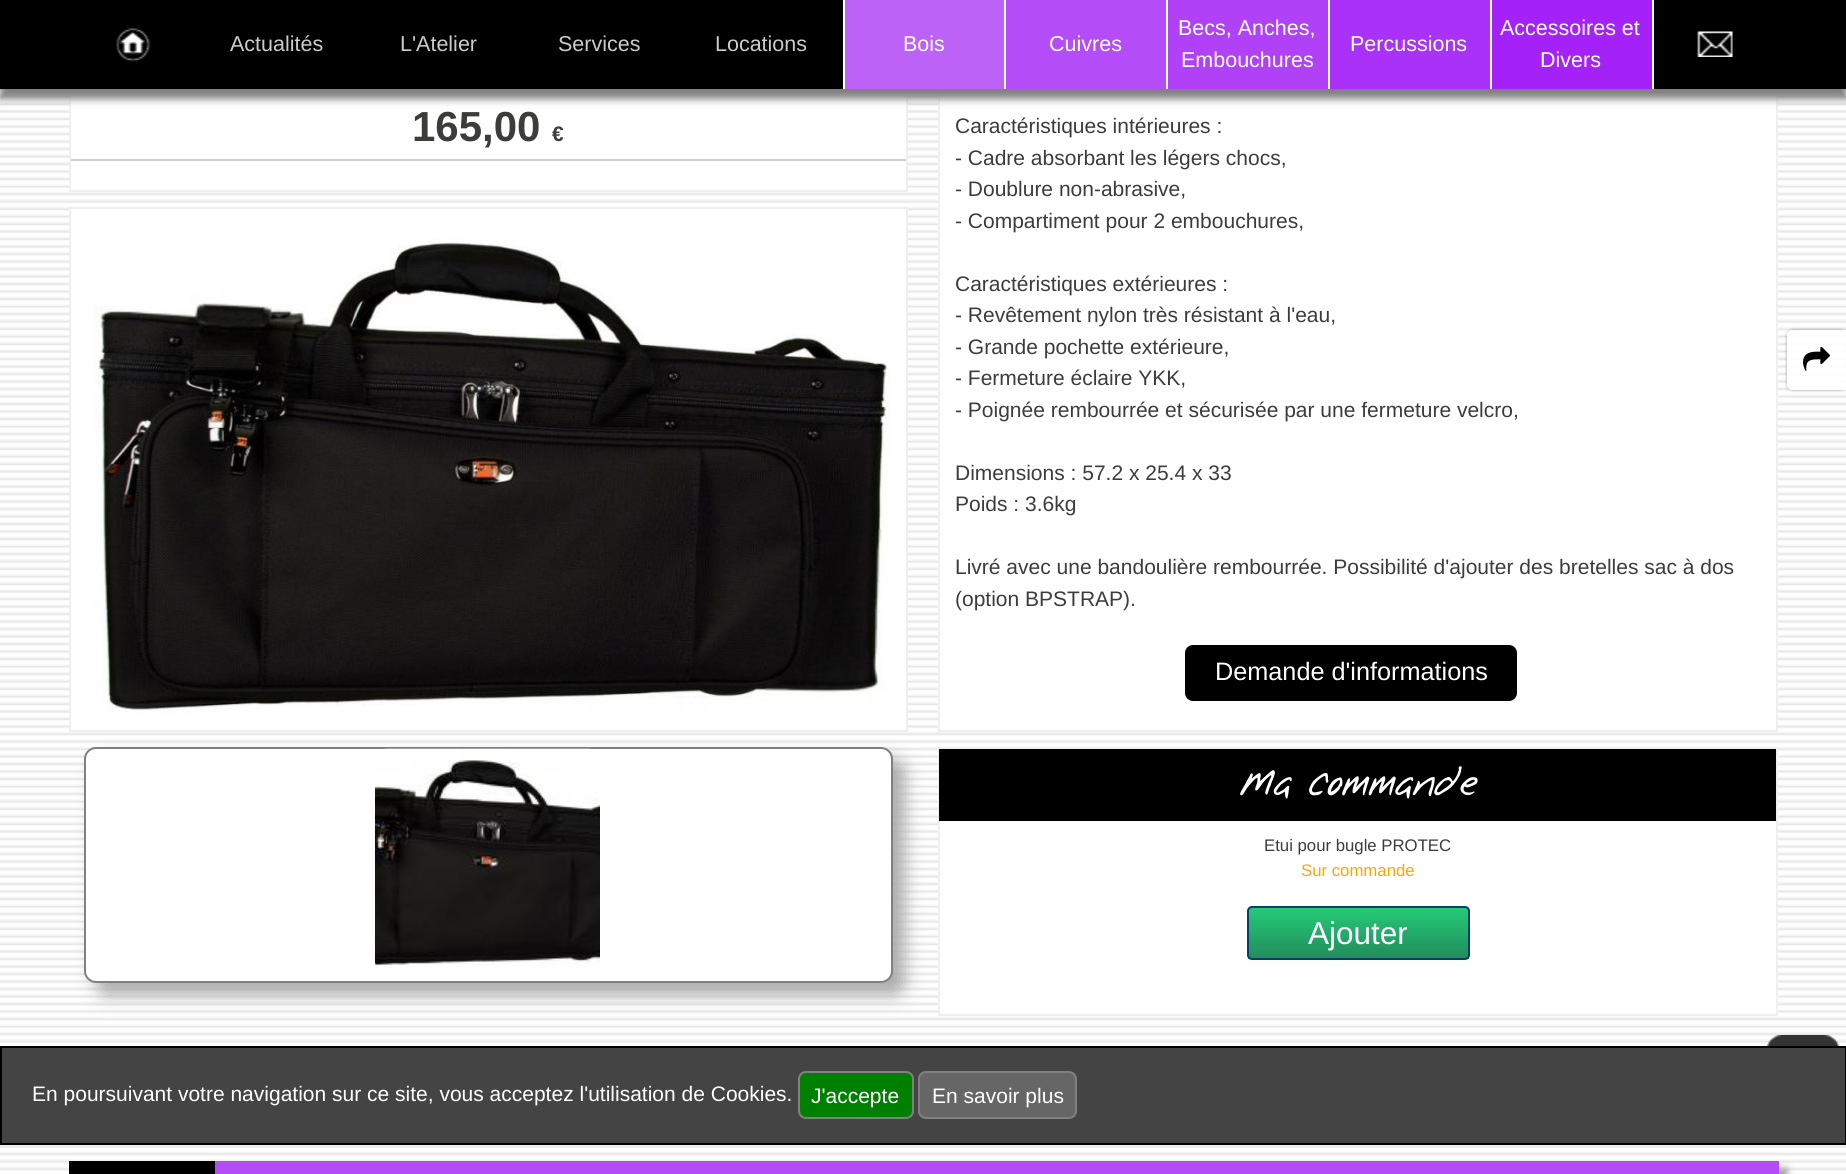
#include <cairo/cairo.h>
#include <math.h>
#include <stddef.h>

static cairo_t *cr;

static void use_color(int r, int g, int b) {
  cairo_set_source_rgb(cr, r / 255.0, g / 255.0, b / 255.0);
}

static void text(double x, double y, const char *s, const char *family, double size, int italic, int bold, int r, int g, int b) {
  cairo_select_font_face(cr, family, italic ? CAIRO_FONT_SLANT_ITALIC : CAIRO_FONT_SLANT_NORMAL,
    bold ? CAIRO_FONT_WEIGHT_BOLD : CAIRO_FONT_WEIGHT_NORMAL);
  cairo_set_font_size(cr, size);
  use_color(r, g, b);
  cairo_move_to(cr, x, y);
  cairo_show_text(cr, s);
}

static void box(double x, double y, double w, double h, int r, int g, int b) {
  use_color(r, g, b);
  cairo_rectangle(cr, x, y, w, h);
  cairo_fill(cr);
}

static void round_rect(double x, double y, double w, double h, double r) {
  cairo_new_sub_path(cr);
  cairo_arc(cr, x + w - r, y + h - r, r, 0, M_PI / 2);
  cairo_arc(cr, x + r, y + h - r, r, M_PI / 2, M_PI);
  cairo_arc(cr, x + r, y + r, r, M_PI, 1.5 * M_PI);
  cairo_arc(cr, x + w - r, y + r, r, 1.5 * M_PI, 2 * M_PI);
  cairo_close_path(cr);
}

static void shadow(double x, double y, double w, double h, double r, double blur, double alpha) {
  cairo_push_group_with_content(cr, CAIRO_CONTENT_ALPHA);
  cairo_set_operator(cr, CAIRO_OPERATOR_SOURCE);
  for (int i = 15; i >= -15 && fmin(w, h) + blur * i / 3 > 0; i -= 2) {
    double e = blur * i / 6;
    cairo_set_source_rgba(cr, 0, 0, 0, alpha * erfc((i - 1) / 8.5) / 2);
    round_rect(x - e, y - e, w + 2 * e, h + 2 * e, fmax(0, fmin(r + e + blur * .6, fmin(w, h) / 2 + e)));
    cairo_fill(cr);
  }
  cairo_pattern_t *soft = cairo_pop_group(cr);
  cairo_mask(cr, soft);
  cairo_pattern_destroy(soft);
}

static void picture(const char *path, double x, double y, double w, double h) {
  cairo_surface_t *image = cairo_image_surface_create_from_png(path);
  cairo_save(cr);
  cairo_set_source_surface(cr, image, x, y);
  cairo_rectangle(cr, x, y, w, h);
  cairo_fill(cr);
  cairo_restore(cr);
  cairo_surface_destroy(image);
}

static void draw(void) {
  cairo_pattern_t *gradient;
  use_color(255, 255, 255);
  cairo_paint(cr);
  picture("img_03.png", 0, 89, 1846, 1082);
  box(71, 89, 835, 99, 255, 255, 255);
  cairo_rectangle(cr, 70, -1, 837, 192);
  use_color(239, 239, 239);
  cairo_stroke(cr);
  box(940, 89, 836, 639, 255, 255, 255);
  cairo_rectangle(cr, 939, -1, 838, 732);
  use_color(239, 239, 239);
  cairo_stroke(cr);
  use_color(128, 128, 128);
  shadow(0, 11, 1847, 88, 0, 4, 1);
  box(0, 0, 1846, 89, 0, 0, 0);
  picture("img_01.png", 116, 28, 35, 34);
  box(845, 0, 159, 89, 189, 98, 247);
  box(843, 0, 2, 89, 255, 255, 255);
  box(1006, 0, 160, 89, 180, 76, 247);
  box(1004, 0, 2, 89, 255, 255, 255);
  box(1168, 0, 160, 89, 176, 65, 247);
  box(1166, 0, 2, 89, 255, 255, 255);
  box(1330, 0, 160, 89, 170, 49, 247);
  box(1328, 0, 2, 89, 255, 255, 255);
  box(1492, 0, 160, 89, 164, 34, 247);
  box(1490, 0, 2, 89, 255, 255, 255);
  picture("img_02.png", 1697, 31, 36, 26);
  box(1652, 0, 2, 89, 255, 255, 255);
  box(71, 159, 835, 2, 204, 204, 204);
  box(71, 209, 835, 519, 255, 255, 255);
  use_color(170, 170, 170);
  shadow(96, 759, 809, 236, 12, 9, 1);
  cairo_rectangle(cr, 70, 208, 837, 523);
  use_color(239, 239, 239);
  cairo_stroke(cr);
  picture("img_04.png", 94, 238, 797, 475);
  use_color(255, 255, 255);
  round_rect(85, 748, 807, 234, 11);
  cairo_fill_preserve(cr);
  use_color(128, 128, 128);
  cairo_stroke(cr);
  picture("img_05.png", 375, 748, 225, 219);
  use_color(0, 0, 0);
  round_rect(1185, 645, 332, 56, 8);
  cairo_fill(cr);
  box(940, 822, 836, 191, 255, 255, 255);
  cairo_rectangle(cr, 939, 748, 838, 267);
  use_color(239, 239, 239);
  cairo_stroke(cr);
  box(939, 749, 837, 72, 0, 0, 0);
  gradient = cairo_pattern_create_linear(1248, 959, 1248, 908);
  cairo_pattern_add_color_stop_rgba(gradient, 0, 0.137, 0.549, 0.361, 1);
  cairo_pattern_add_color_stop_rgba(gradient, 1, 0.141, 0.792, 0.463, 1);
  cairo_set_source(cr, gradient);
  cairo_pattern_destroy(gradient);
  cairo_rectangle(cr, 1248, 908, 221, 51);
  cairo_fill(cr);
  round_rect(1248, 907, 221, 52, 4);
  use_color(5, 61, 108);
  cairo_stroke(cr);
  use_color(153, 153, 153);
  shadow(77, 1169, 1710, 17, 0, 4, 1);
  box(215, 1161, 1564, 13, 180, 76, 247);
  box(69, 1161, 146, 13, 0, 0, 0);
  use_color(0, 0, 0);
  shadow(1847, 330, 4, 60, 0, 1.5, 0.4);
  cairo_save(cr);
  cairo_set_fill_rule(cr, CAIRO_FILL_RULE_EVEN_ODD);
  cairo_new_path(cr);
  cairo_move_to(cr, 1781, 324);
  cairo_line_to(cr, 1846, 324);
  cairo_line_to(cr, 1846, 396);
  cairo_line_to(cr, 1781, 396);
  cairo_close_path(cr);
  cairo_move_to(cr, 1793, 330);
  cairo_line_to(cr, 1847, 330);
  cairo_line_to(cr, 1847, 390);
  cairo_line_to(cr, 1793, 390);
  cairo_curve_to(cr, 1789.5, 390, 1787, 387.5, 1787, 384);
  cairo_line_to(cr, 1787, 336);
  cairo_curve_to(cr, 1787, 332.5, 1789.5, 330, 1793, 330);
  cairo_close_path(cr);
  cairo_clip(cr);
  shadow(1787, 330, 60, 60, 6, 1.5, 0.4);
  cairo_restore(cr);
  cairo_set_source_rgba(cr, 1, 1, 1, 0.9);
  cairo_new_path(cr);
  cairo_move_to(cr, 1793, 330);
  cairo_line_to(cr, 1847, 330);
  cairo_line_to(cr, 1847, 390);
  cairo_line_to(cr, 1793, 390);
  cairo_curve_to(cr, 1789.5, 390, 1787, 387.5, 1787, 384);
  cairo_line_to(cr, 1787, 336);
  cairo_curve_to(cr, 1787, 332.5, 1789.5, 330, 1793, 330);
  cairo_close_path(cr);
  cairo_fill(cr);
  picture("img_06.png", 1803, 346, 27, 25);
  picture("img_07.png", 1767, 1035, 72, 11);
  use_color(68, 68, 68);
  cairo_rectangle(cr, 1, 1047, 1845, 97);
  cairo_fill_preserve(cr);
  use_color(0, 0, 0);
  cairo_stroke(cr);
  use_color(0, 128, 0);
  round_rect(799, 1072, 114, 46, 7);
  cairo_fill_preserve(cr);
  use_color(128, 128, 128);
  cairo_stroke(cr);
  use_color(102, 102, 102);
  round_rect(919, 1072, 157, 46, 7);
  cairo_fill_preserve(cr);
  use_color(128, 128, 128);
  cairo_stroke(cr);
  text(230, 51, "Actualités", "Liberation Sans", 21.5, 0, 0, 204, 204, 204);
  text(400, 51, "L'Atelier", "Liberation Sans", 21.5, 0, 0, 204, 204, 204);
  text(558, 51, "Services", "Liberation Sans", 21.5, 0, 0, 204, 204, 204);
  text(715, 51, "Locations", "Liberation Sans", 21.5, 0, 0, 204, 204, 204);
  text(903, 51, "Bois", "Liberation Sans", 21.5, 0, 0, 255, 255, 255);
  text(1049, 51, "Cuivres", "Liberation Sans", 21.5, 0, 0, 255, 255, 255);
  text(1178, 35, "Becs, Anches,", "Liberation Sans", 21.5, 0, 0, 255, 255, 255);
  text(1181, 67, "Embouchures", "Liberation Sans", 21.5, 0, 0, 255, 255, 255);
  text(1350, 51, "Percussions", "Liberation Sans", 21.5, 0, 0, 255, 255, 255);
  text(1500, 35, "Accessoires et", "Liberation Sans", 21.5, 0, 0, 255, 255, 255);
  text(1540, 67, "Divers", "Liberation Sans", 21.5, 0, 0, 255, 255, 255);
  text(412, 141, "165,00", "Liberation Sans", 42, 0, 1, 60, 60, 59);
  text(552, 141, "€", "Liberation Sans", 21, 0, 1, 60, 60, 59);
  text(955, 133, "Caractéristiques intérieures :", "Liberation Sans", 21, 0, 0, 60, 60, 59);
  text(955, 165, "- Cadre absorbant les légers chocs,", "Liberation Sans", 21, 0, 0, 60, 60, 59);
  text(955, 196, "- Doublure non-abrasive,", "Liberation Sans", 21, 0, 0, 60, 60, 59);
  text(955, 228, "- Compartiment pour 2 embouchures,", "Liberation Sans", 21, 0, 0, 60, 60, 59);
  text(955, 291, "Caractéristiques extérieures :", "Liberation Sans", 21, 0, 0, 60, 60, 59);
  text(955, 322, "- Revêtement nylon très résistant à l'eau,", "Liberation Sans", 21, 0, 0, 60, 60, 59);
  text(955, 354, "- Grande pochette extérieure,", "Liberation Sans", 21, 0, 0, 60, 60, 59);
  text(955, 385, "- Fermeture éclaire YKK,", "Liberation Sans", 21, 0, 0, 60, 60, 59);
  text(955, 417, "- Poignée rembourrée et sécurisée par une fermeture velcro,", "Liberation Sans", 21, 0, 0, 60, 60, 59);
  text(955, 480, "Dimensions : 57.2 x 25.4 x 33", "Liberation Sans", 21, 0, 0, 60, 60, 59);
  text(955, 511, "Poids : 3.6kg", "Liberation Sans", 21, 0, 0, 60, 60, 59);
  text(955, 574, "Livré avec une bandoulière rembourrée. Possibilité d'ajouter des bretelles sac à dos", "Liberation Sans", 21, 0, 0, 60, 60, 59);
  text(955, 606, "(option BPSTRAP).", "Liberation Sans", 21, 0, 0, 60, 60, 59);
  text(1215, 680, "Demande d'informations", "Liberation Sans", 25.25, 0, 0, 255, 255, 255);
  text(1240, 795, "Ma commande", "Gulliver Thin", 37.75, 0, 0, 255, 255, 255);
  text(1264, 851, "Etui pour bugle PROTEC", "Liberation Sans", 16.75, 0, 0, 60, 60, 59);
  text(1301, 876, "Sur commande", "Liberation Sans", 16.75, 0, 0, 255, 165, 0);
  text(1308, 944, "Ajouter", "Liberation Sans", 31.5, 0, 0, 255, 255, 255);
  text(32, 1101, "En poursuivant votre navigation sur ce site, vous acceptez l'utilisation de Cookies.", "Liberation Sans", 21, 0, 0, 255, 255, 255);
  text(811, 1103, "J'accepte", "Liberation Sans", 21, 0, 0, 255, 255, 255);
  text(932, 1103, "En savoir plus", "Liberation Sans", 21, 0, 0, 255, 255, 255);
}

int main(void) {
  cairo_surface_t *surface = cairo_image_surface_create(CAIRO_FORMAT_RGB24, 1846, 1174);
  cr = cairo_create(surface);
  cairo_font_options_t *options = cairo_font_options_create();
  cairo_font_options_set_hint_metrics(options, CAIRO_HINT_METRICS_OFF);
  cairo_font_options_set_hint_style(options, CAIRO_HINT_STYLE_NONE);
  cairo_set_font_options(cr, options);
  cairo_set_miter_limit(cr, 4);
  draw();
  cairo_surface_write_to_png(surface, "out.png");
  cairo_font_options_destroy(options);
  cairo_destroy(cr);
  cairo_surface_destroy(surface);
  return 0;
}
